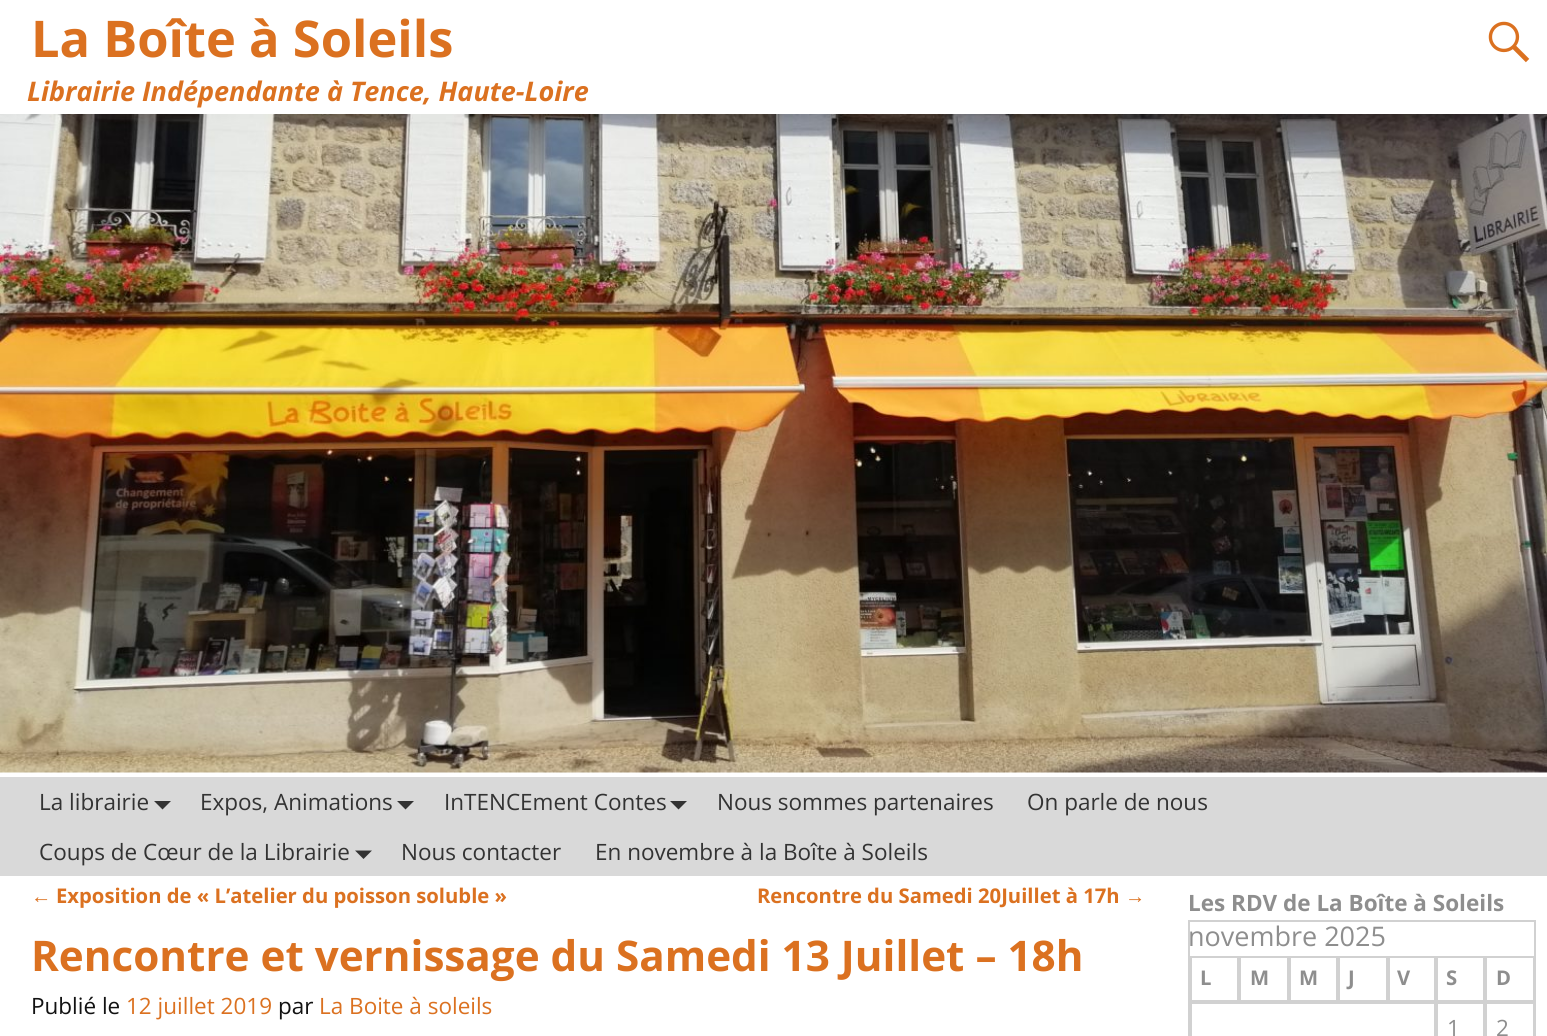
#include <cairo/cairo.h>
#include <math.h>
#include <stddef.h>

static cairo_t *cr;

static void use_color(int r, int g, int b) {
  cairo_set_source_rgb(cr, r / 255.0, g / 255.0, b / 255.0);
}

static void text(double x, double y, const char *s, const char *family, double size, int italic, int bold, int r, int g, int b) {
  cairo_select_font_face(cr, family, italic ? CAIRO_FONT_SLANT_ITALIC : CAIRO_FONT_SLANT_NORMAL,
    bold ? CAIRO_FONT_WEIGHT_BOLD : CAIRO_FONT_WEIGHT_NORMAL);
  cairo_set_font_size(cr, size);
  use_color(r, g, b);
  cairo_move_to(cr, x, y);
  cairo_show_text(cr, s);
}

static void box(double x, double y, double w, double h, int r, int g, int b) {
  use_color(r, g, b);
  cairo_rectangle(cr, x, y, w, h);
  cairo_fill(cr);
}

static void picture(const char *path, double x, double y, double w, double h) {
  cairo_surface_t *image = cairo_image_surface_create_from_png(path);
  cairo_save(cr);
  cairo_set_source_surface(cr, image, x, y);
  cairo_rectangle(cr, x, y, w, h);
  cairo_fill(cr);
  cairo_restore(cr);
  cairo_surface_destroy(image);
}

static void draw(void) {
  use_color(255, 255, 255);
  cairo_paint(cr);
  picture("img_01.png", 1488, 21, 42, 42);
  picture("img_02.png", 0, 114, 1547, 659);
  box(0, 777, 1547, 99, 217, 217, 217);
  use_color(51, 51, 51);
  cairo_new_path(cr);
  cairo_move_to(cr, 154, 801);
  cairo_line_to(cr, 171, 801);
  cairo_line_to(cr, 162.5, 809.5);
  cairo_close_path(cr);
  cairo_fill(cr);
  cairo_new_path(cr);
  cairo_move_to(cr, 397, 801);
  cairo_line_to(cr, 414, 801);
  cairo_line_to(cr, 405.5, 809.5);
  cairo_close_path(cr);
  cairo_fill(cr);
  cairo_new_path(cr);
  cairo_move_to(cr, 670, 801);
  cairo_line_to(cr, 687, 801);
  cairo_line_to(cr, 678.5, 809.5);
  cairo_close_path(cr);
  cairo_fill(cr);
  cairo_new_path(cr);
  cairo_move_to(cr, 355, 850.5);
  cairo_line_to(cr, 372, 850.5);
  cairo_line_to(cr, 363.5, 859);
  cairo_close_path(cr);
  cairo_fill(cr);
  cairo_rectangle(cr, 1189, 921, 346, 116);
  use_color(209, 209, 209);
  cairo_stroke(cr);
  cairo_rectangle(cr, 1191, 957, 47, 44);
  cairo_stroke(cr);
  cairo_rectangle(cr, 1240, 957, 48, 44);
  cairo_stroke(cr);
  cairo_rectangle(cr, 1290, 957, 47, 44);
  cairo_stroke(cr);
  cairo_rectangle(cr, 1339, 957, 48, 44);
  cairo_stroke(cr);
  cairo_rectangle(cr, 1389, 957, 46, 44);
  cairo_stroke(cr);
  cairo_rectangle(cr, 1437, 957, 47, 44);
  cairo_stroke(cr);
  cairo_rectangle(cr, 1486, 957, 48, 44);
  cairo_stroke(cr);
  cairo_rectangle(cr, 1191, 1003, 244, 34);
  cairo_stroke(cr);
  cairo_rectangle(cr, 1437, 1003, 47, 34);
  cairo_stroke(cr);
  cairo_rectangle(cr, 1486, 1003, 48, 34);
  cairo_stroke(cr);
  text(31, 57, "La Boîte à Soleils", "Open Sans", 50.6, 0, 1, 219, 113, 32);
  text(27, 101, "Librairie Indépendante à Tence, Haute-Loire", "Open Sans", 27, 1, 1, 219, 113, 32);
  text(39, 810, "La librairie", "Open Sans", 22.5, 0, 0, 51, 51, 51);
  text(200, 810, "Expos, Animations", "Open Sans", 22.5, 0, 0, 51, 51, 51);
  text(444, 810, "InTENCEment Contes", "Open Sans", 22.5, 0, 0, 51, 51, 51);
  text(717, 810, "Nous sommes partenaires", "Open Sans", 22.5, 0, 0, 51, 51, 51);
  text(1027, 810, "On parle de nous", "Open Sans", 22.5, 0, 0, 51, 51, 51);
  text(39, 860, "Coups de Cœur de la Librairie", "Open Sans", 22.5, 0, 0, 51, 51, 51);
  text(401, 860, "Nous contacter", "Open Sans", 22.5, 0, 0, 51, 51, 51);
  text(595, 860, "En novembre à la Boîte à Soleils", "Open Sans", 22.5, 0, 0, 51, 51, 51);
  text(31, 903, "←", "Liberation Sans", 20.25, 0, 0, 219, 113, 32);
  text(56, 903, "Exposition de « L’atelier du poisson soluble »", "Open Sans", 20.25, 0, 1, 219, 113, 32);
  text(757, 903, "Rencontre du Samedi 20Juillet à 17h", "Open Sans", 20.25, 0, 1, 219, 113, 32);
  text(1125, 903, "→", "Liberation Sans", 20.25, 0, 0, 219, 113, 32);
  text(31, 971, "Rencontre et vernissage du Samedi 13 Juillet – 18h", "Open Sans", 42.2, 0, 1, 219, 113, 32);
  text(31, 1014, "Publié le", "Open Sans", 22.5, 0, 0, 18, 18, 18);
  text(126, 1014, "12 juillet 2019", "Open Sans", 22.5, 0, 0, 219, 113, 32);
  text(278, 1014, "par", "Open Sans", 22.5, 0, 0, 18, 18, 18);
  text(319, 1014, "La Boite à soleils", "Open Sans", 22.5, 0, 0, 219, 113, 32);
  text(1188, 911, "Les RDV de La Boîte à Soleils", "Open Sans", 22.5, 0, 1, 142, 142, 142);
  text(1188, 946, "novembre 2025", "Open Sans", 27, 0, 0, 142, 142, 142);
  text(1200, 985, "L", "Open Sans", 20.25, 0, 1, 142, 142, 142);
  text(1250, 985, "M", "Open Sans", 20.25, 0, 1, 142, 142, 142);
  text(1299, 985, "M", "Open Sans", 20.25, 0, 1, 142, 142, 142);
  text(1348, 985, "J", "Open Sans", 20.25, 0, 1, 142, 142, 142);
  text(1397, 985, "V", "Open Sans", 20.25, 0, 1, 142, 142, 142);
  text(1446, 985, "S", "Open Sans", 20.25, 0, 1, 142, 142, 142);
  text(1496, 985, "D", "Open Sans", 20.25, 0, 1, 142, 142, 142);
  text(1447, 1036, "1", "Open Sans", 22.5, 0, 0, 142, 142, 142);
  text(1496, 1036, "2", "Open Sans", 22.5, 0, 0, 142, 142, 142);
}

int main(void) {
  cairo_surface_t *surface = cairo_image_surface_create(CAIRO_FORMAT_RGB24, 1547, 1036);
  cr = cairo_create(surface);
  cairo_font_options_t *options = cairo_font_options_create();
  cairo_font_options_set_hint_metrics(options, CAIRO_HINT_METRICS_OFF);
  cairo_font_options_set_hint_style(options, CAIRO_HINT_STYLE_NONE);
  cairo_set_font_options(cr, options);
  cairo_set_miter_limit(cr, 4);
  draw();
  cairo_surface_write_to_png(surface, "out.png");
  cairo_font_options_destroy(options);
  cairo_destroy(cr);
  cairo_surface_destroy(surface);
  return 0;
}
